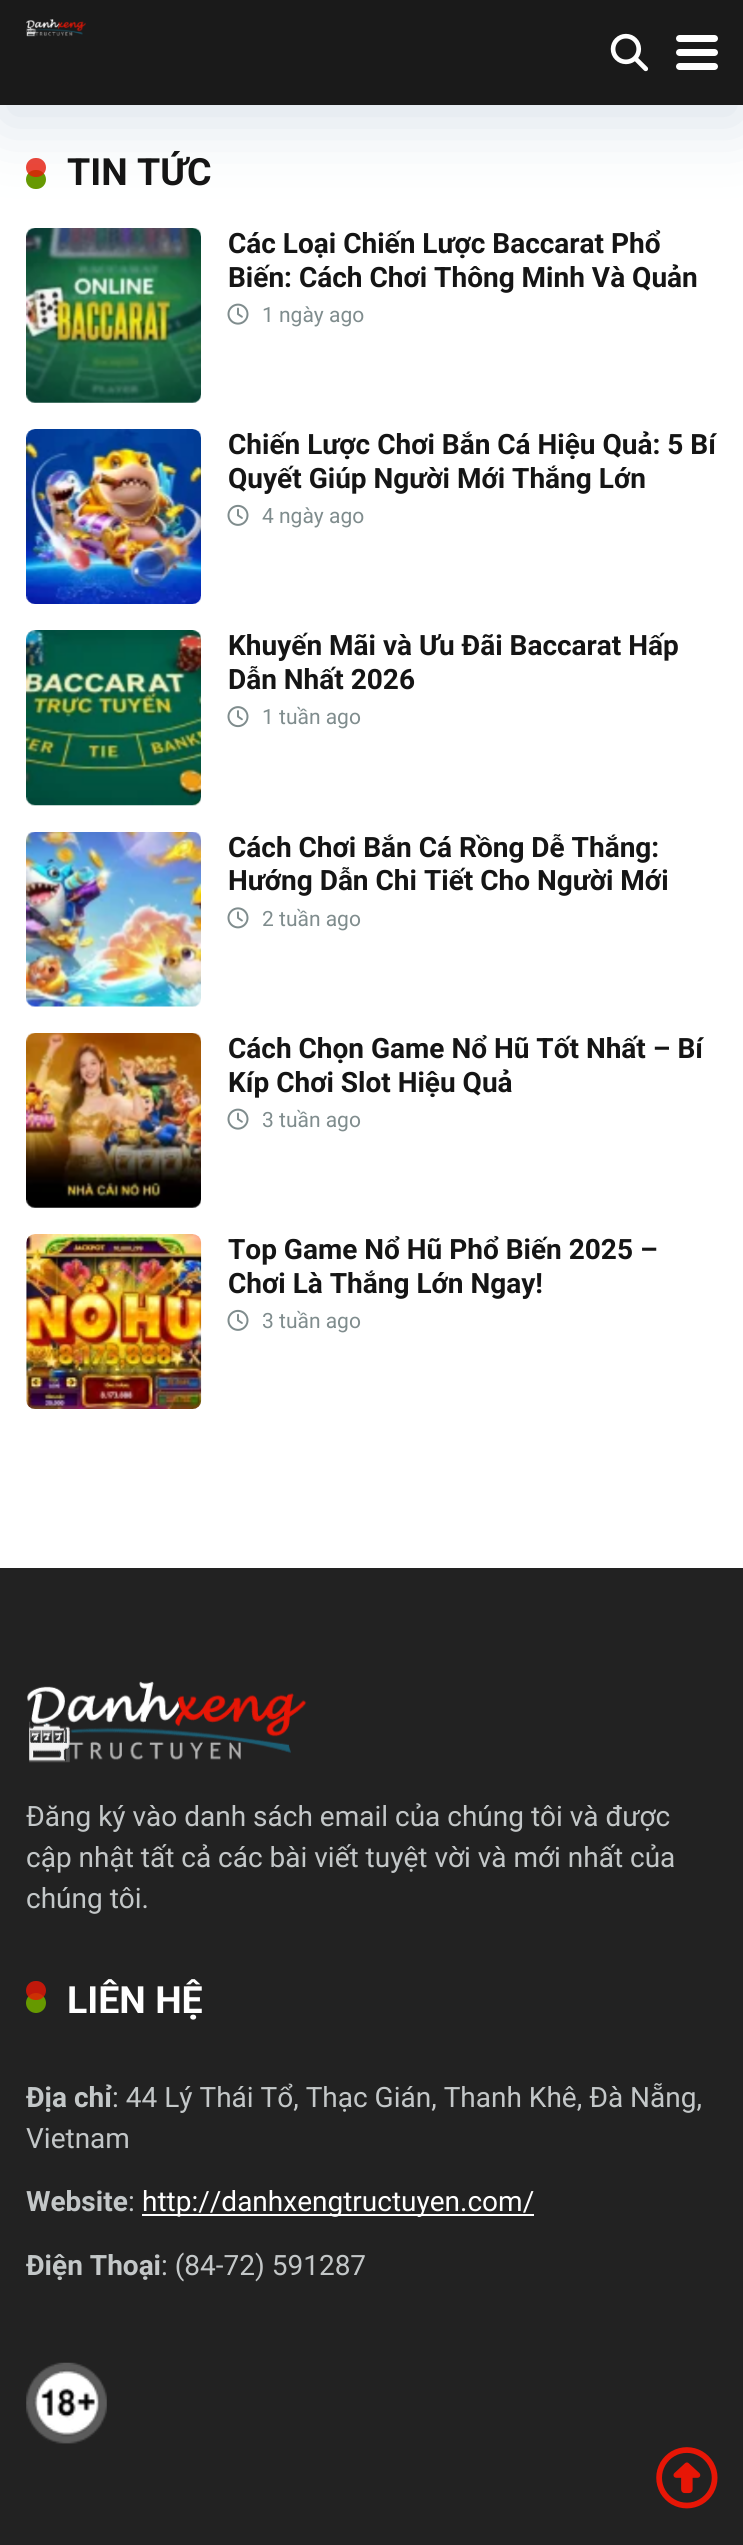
#include <cairo/cairo.h>
#include <math.h>
#include <stddef.h>

static cairo_t *cr;

static void use_color(int r, int g, int b) {
  cairo_set_source_rgb(cr, r / 255.0, g / 255.0, b / 255.0);
}

static void text(double x, double y, const char *s, const char *family, double size, int italic, int bold, int r, int g, int b) {
  cairo_select_font_face(cr, family, italic ? CAIRO_FONT_SLANT_ITALIC : CAIRO_FONT_SLANT_NORMAL,
    bold ? CAIRO_FONT_WEIGHT_BOLD : CAIRO_FONT_WEIGHT_NORMAL);
  cairo_set_font_size(cr, size);
  use_color(r, g, b);
  cairo_move_to(cr, x, y);
  cairo_show_text(cr, s);
}

static void box(double x, double y, double w, double h, int r, int g, int b) {
  use_color(r, g, b);
  cairo_rectangle(cr, x, y, w, h);
  cairo_fill(cr);
}

static void round_rect(double x, double y, double w, double h, double r) {
  cairo_new_sub_path(cr);
  cairo_arc(cr, x + w - r, y + h - r, r, 0, M_PI / 2);
  cairo_arc(cr, x + r, y + h - r, r, M_PI / 2, M_PI);
  cairo_arc(cr, x + r, y + r, r, M_PI, 1.5 * M_PI);
  cairo_arc(cr, x + w - r, y + r, r, 1.5 * M_PI, 2 * M_PI);
  cairo_close_path(cr);
}

static void shadow(double x, double y, double w, double h, double r, double blur, double alpha) {
  cairo_push_group_with_content(cr, CAIRO_CONTENT_ALPHA);
  cairo_set_operator(cr, CAIRO_OPERATOR_SOURCE);
  for (int i = 15; i >= -15 && fmin(w, h) + blur * i / 3 > 0; i -= 2) {
    double e = blur * i / 6;
    cairo_set_source_rgba(cr, 0, 0, 0, alpha * erfc((i - 1) / 8.5) / 2);
    round_rect(x - e, y - e, w + 2 * e, h + 2 * e, fmax(0, fmin(r + e + blur * .6, fmin(w, h) / 2 + e)));
    cairo_fill(cr);
  }
  cairo_pattern_t *soft = cairo_pop_group(cr);
  cairo_mask(cr, soft);
  cairo_pattern_destroy(soft);
}

static void picture(const char *path, double x, double y, double w, double h) {
  cairo_surface_t *image = cairo_image_surface_create_from_png(path);
  cairo_save(cr);
  cairo_set_source_surface(cr, image, x, y);
  cairo_rectangle(cr, x, y, w, h);
  cairo_fill(cr);
  cairo_restore(cr);
  cairo_surface_destroy(image);
}

static void draw(void) {
  use_color(255, 255, 255);
  cairo_paint(cr);
  use_color(102, 153, 0);
  round_rect(26, 170, 20, 19, 9.5);
  cairo_fill(cr);
  cairo_set_source_rgba(cr, 0.906, 0.086, 0.024, 0.8);
  round_rect(26, 158, 20, 19, 9.5);
  cairo_fill(cr);
  picture("img_03.png", 26, 228, 175, 175);
  use_color(109, 141, 173);
  shadow(0, 18, 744, 105, 0, 35, 0.25);
  box(0, 0, 743, 105, 26, 26, 26);
  picture("img_01.png", 26, 19, 60, 18);
  picture("img_02.png", 610, 33, 39, 39);
  use_color(255, 255, 255);
  round_rect(676, 35, 42, 7, 3.5);
  cairo_fill(cr);
  round_rect(676, 49, 42, 7, 3.5);
  cairo_fill(cr);
  round_rect(676, 63, 42, 7, 3.5);
  cairo_fill(cr);
  picture("img_04.png", 227, 303, 22, 22);
  picture("img_05.png", 26, 429, 175, 175);
  picture("img_06.png", 227, 504, 22, 22);
  picture("img_07.png", 26, 630, 175, 176);
  picture("img_08.png", 227, 706, 22, 22);
  picture("img_09.png", 26, 832, 175, 175);
  picture("img_10.png", 227, 907, 22, 22);
  picture("img_11.png", 26, 1033, 175, 175);
  picture("img_04.png", 227, 1108, 22, 22);
  picture("img_12.png", 26, 1234, 176, 175);
  picture("img_06.png", 227, 1309, 22, 22);
  box(0, 1568, 743, 977, 34, 34, 34);
  picture("img_13.png", 27, 1681, 280, 82);
  use_color(102, 153, 0);
  cairo_arc(cr, 36, 2003, 10, 0, 2 * M_PI);
  cairo_fill(cr);
  cairo_set_source_rgba(cr, 0.906, 0.086, 0.024, 0.8);
  round_rect(26, 1981, 20, 19, 9.5);
  cairo_fill(cr);
  box(142, 2214, 392, 2, 255, 255, 255);
  picture("img_14.png", 26, 2362, 81, 82);
  picture("img_15.png", 656, 2447, 62, 62);
  text(67, 185, "TIN TỨC", "Roboto", 37.5, 0, 1, 21, 21, 21);
  text(228, 253, "Các Loại Chiến Lược Baccarat Phổ", "Roboto", 28, 0, 1, 21, 21, 21);
  text(228, 287, "Biến: Cách Chơi Thông Minh Và Quản", "Roboto", 28, 0, 1, 21, 21, 21);
  text(262, 322, "1 ngày ago", "Roboto", 21, 0, 0, 127, 140, 141);
  text(228, 454, "Chiến Lược Chơi Bắn Cá Hiệu Quả: 5 Bí", "Roboto", 28, 0, 1, 21, 21, 21);
  text(228, 488, "Quyết Giúp Người Mới Thắng Lớn", "Roboto", 28, 0, 1, 21, 21, 21);
  text(262, 523, "4 ngày ago", "Roboto", 21, 0, 0, 127, 140, 141);
  text(228, 655, "Khuyến Mãi và Ưu Đãi Baccarat Hấp", "Roboto", 28, 0, 1, 21, 21, 21);
  text(228, 689, "Dẫn Nhất 2026", "Roboto", 28, 0, 1, 21, 21, 21);
  text(262, 724, "1 tuần ago", "Roboto", 21, 0, 0, 127, 140, 141);
  text(228, 857, "Cách Chơi Bắn Cá Rồng Dễ Thắng:", "Roboto", 28, 0, 1, 21, 21, 21);
  text(228, 890, "Hướng Dẫn Chi Tiết Cho Người Mới", "Roboto", 28, 0, 1, 21, 21, 21);
  text(262, 926, "2 tuần ago", "Roboto", 21, 0, 0, 127, 140, 141);
  text(228, 1058, "Cách Chọn Game Nổ Hũ Tốt Nhất – Bí", "Roboto", 28, 0, 1, 21, 21, 21);
  text(228, 1092, "Kíp Chơi Slot Hiệu Quả", "Roboto", 28, 0, 1, 21, 21, 21);
  text(262, 1127, "3 tuần ago", "Roboto", 21, 0, 0, 127, 140, 141);
  text(228, 1259, "Top Game Nổ Hũ Phổ Biến 2025 –", "Roboto", 28, 0, 1, 21, 21, 21);
  text(228, 1293, "Chơi Là Thắng Lớn Ngay!", "Roboto", 28, 0, 1, 21, 21, 21);
  text(262, 1328, "3 tuần ago", "Roboto", 21, 0, 0, 127, 140, 141);
  text(26, 1826, "Đăng ký vào danh sách email của chúng tôi và được", "Roboto", 28, 0, 0, 195, 199, 200);
  text(26, 1867, "cập nhật tất cả các bài viết tuyệt vời và mới nhất của", "Roboto", 28, 0, 0, 195, 199, 200);
  text(26, 1908, "chúng tôi.", "Roboto", 28, 0, 0, 195, 199, 200);
  text(67, 2013, "LIÊN HỆ", "Roboto", 37.5, 0, 1, 255, 255, 255);
  text(26, 2107, "Địa chỉ", "Roboto", 28, 0, 1, 195, 199, 200);
  text(112, 2107, ": 44 Lý Thái Tổ, Thạc Gián, Thanh Khê, Đà Nẵng,", "Roboto", 28, 0, 0, 195, 199, 200);
  text(26, 2148, "Vietnam", "Roboto", 28, 0, 0, 195, 199, 200);
  text(26, 2211, "Website", "Roboto", 28, 0, 1, 195, 199, 200);
  text(128, 2211, ":", "Roboto", 28, 0, 0, 195, 199, 200);
  text(142, 2211, "http://danhxengtructuyen.com/", "Roboto", 28, 0, 0, 255, 255, 255);
  text(26, 2275, "Điện Thoại", "Roboto", 28, 0, 1, 195, 199, 200);
  text(161, 2275, ": (84-72) 591287", "Roboto", 28, 0, 0, 195, 199, 200);
}

int main(void) {
  cairo_surface_t *surface = cairo_image_surface_create(CAIRO_FORMAT_RGB24, 743, 2545);
  cr = cairo_create(surface);
  cairo_font_options_t *options = cairo_font_options_create();
  cairo_font_options_set_hint_metrics(options, CAIRO_HINT_METRICS_OFF);
  cairo_font_options_set_hint_style(options, CAIRO_HINT_STYLE_NONE);
  cairo_set_font_options(cr, options);
  cairo_set_miter_limit(cr, 4);
  draw();
  cairo_surface_write_to_png(surface, "out.png");
  cairo_font_options_destroy(options);
  cairo_destroy(cr);
  cairo_surface_destroy(surface);
  return 0;
}
